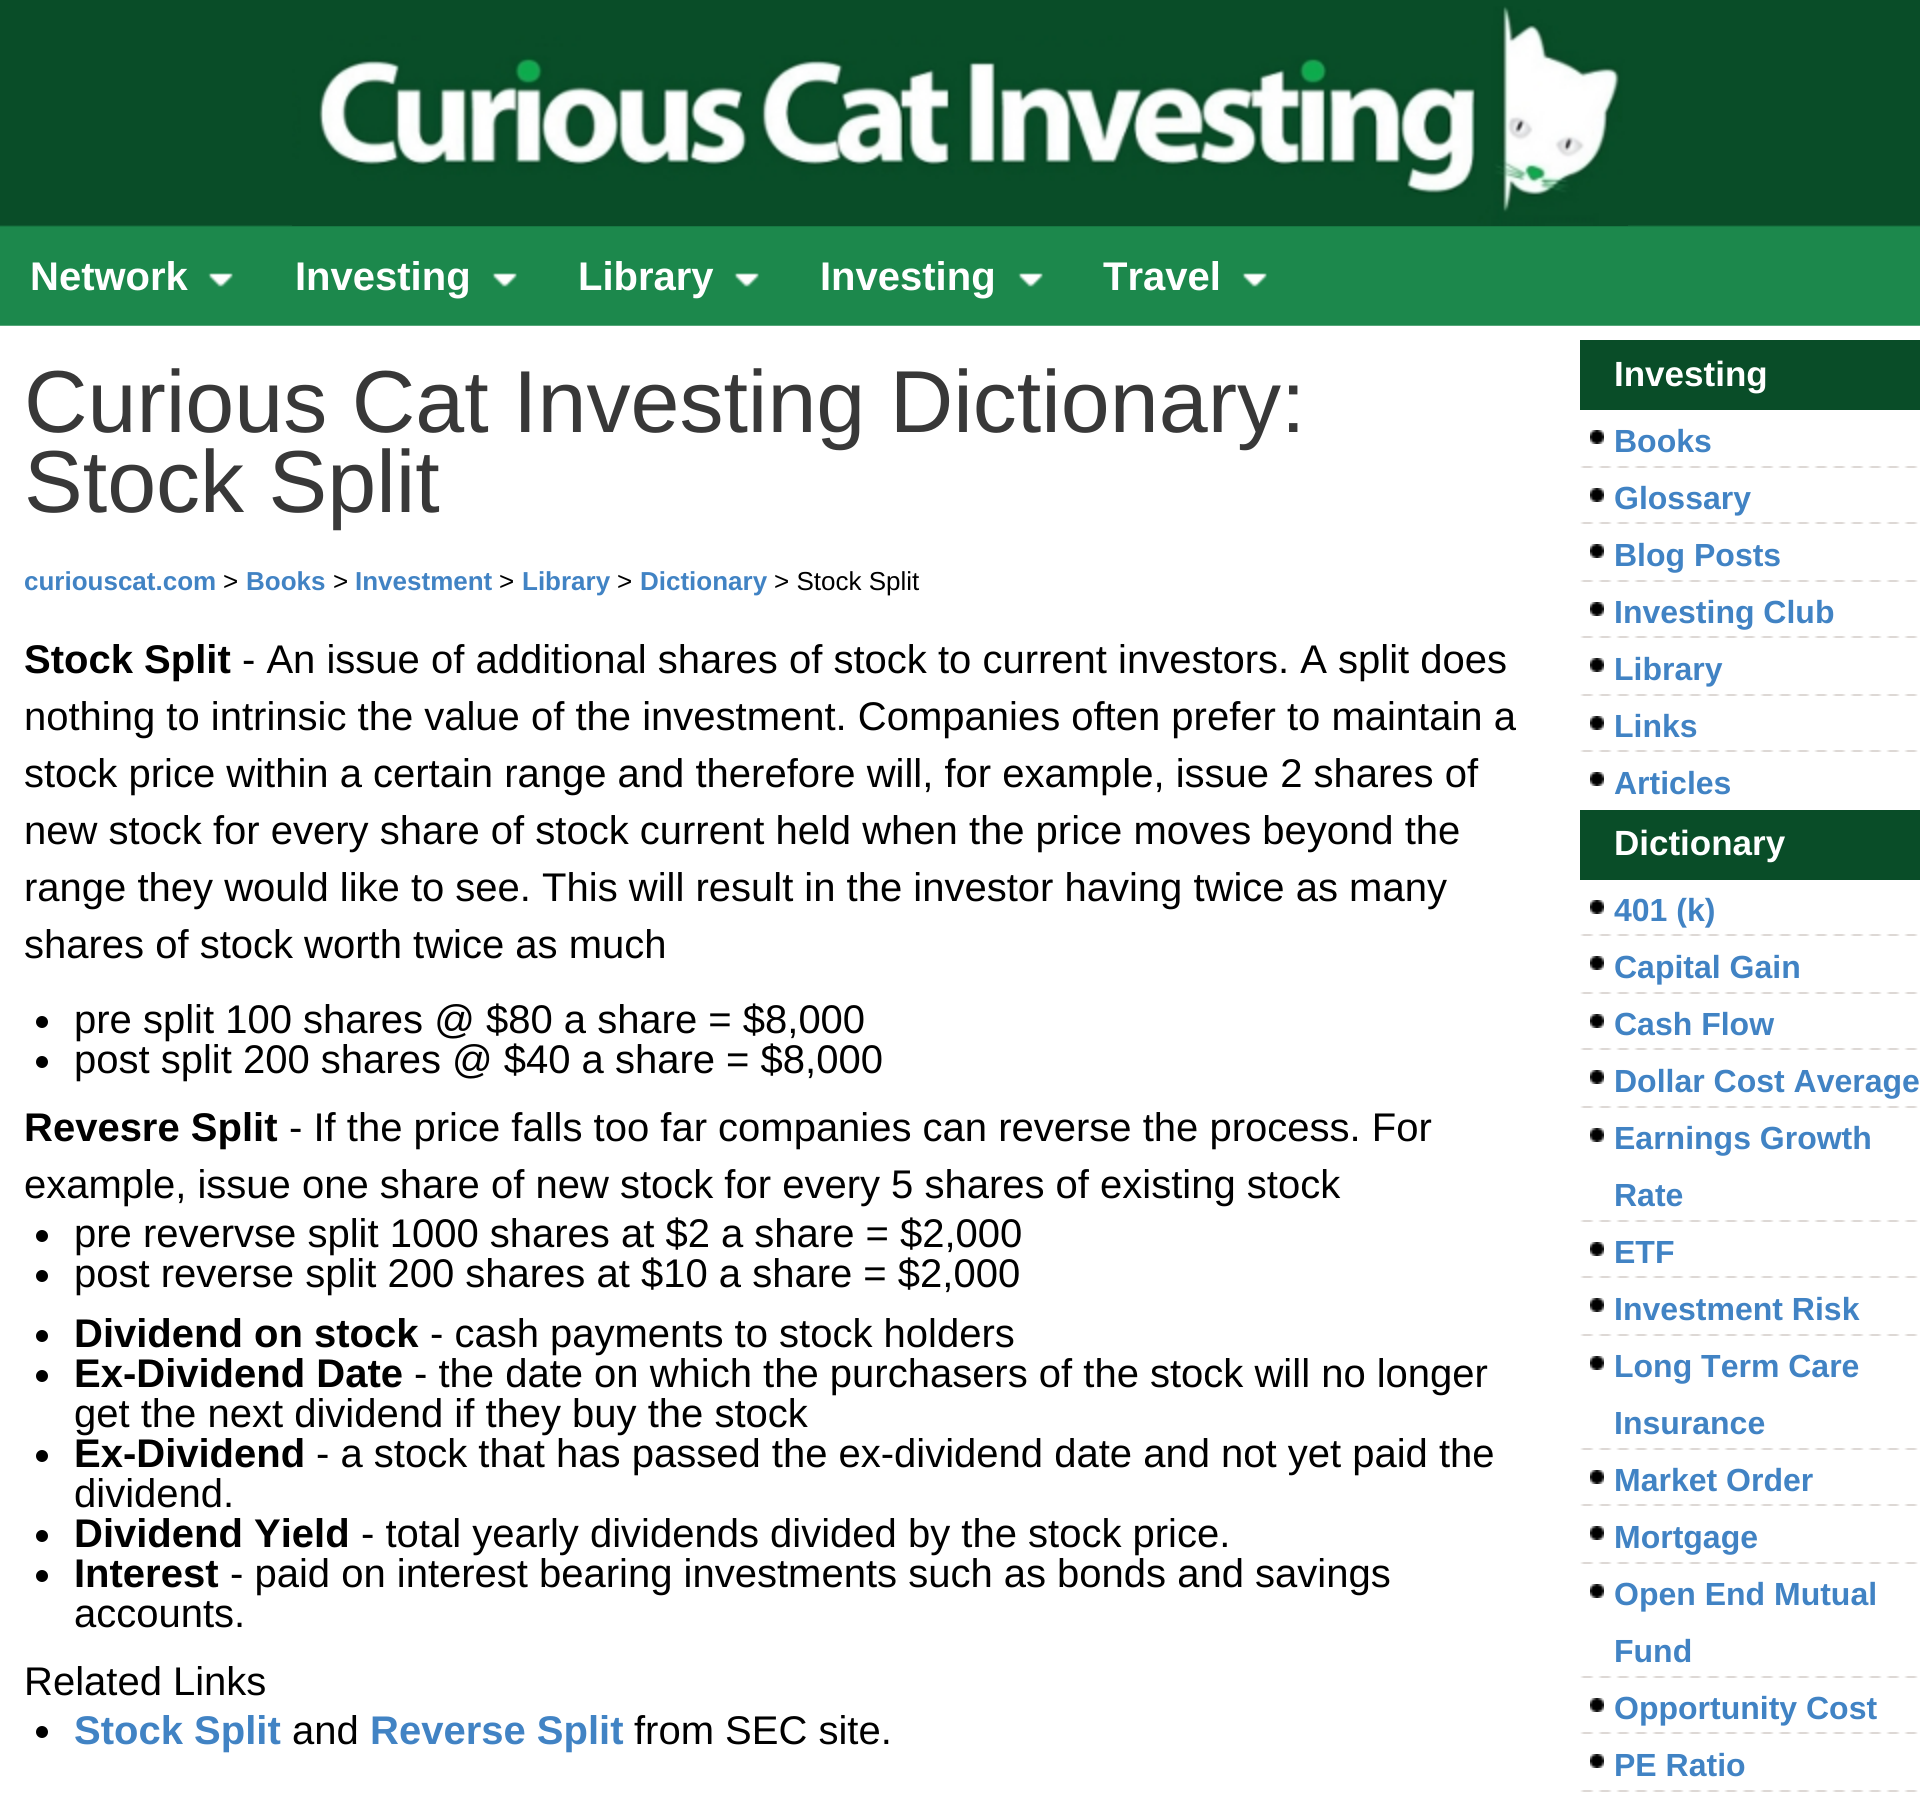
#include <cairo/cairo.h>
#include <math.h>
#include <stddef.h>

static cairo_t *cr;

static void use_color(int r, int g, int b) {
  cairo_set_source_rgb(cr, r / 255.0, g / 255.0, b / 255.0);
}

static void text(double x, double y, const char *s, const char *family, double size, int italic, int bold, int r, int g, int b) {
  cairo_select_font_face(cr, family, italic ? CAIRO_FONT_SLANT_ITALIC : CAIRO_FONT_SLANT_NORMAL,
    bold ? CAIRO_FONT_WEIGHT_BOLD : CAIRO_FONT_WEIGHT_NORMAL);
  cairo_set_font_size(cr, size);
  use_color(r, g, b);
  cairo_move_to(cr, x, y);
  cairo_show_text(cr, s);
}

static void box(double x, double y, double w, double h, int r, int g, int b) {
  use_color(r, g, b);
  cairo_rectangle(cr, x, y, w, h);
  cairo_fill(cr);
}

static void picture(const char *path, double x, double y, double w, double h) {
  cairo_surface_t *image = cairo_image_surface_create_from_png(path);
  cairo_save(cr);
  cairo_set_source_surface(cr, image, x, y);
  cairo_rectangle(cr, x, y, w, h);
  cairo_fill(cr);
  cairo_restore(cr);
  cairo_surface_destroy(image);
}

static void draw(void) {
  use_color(255, 255, 255);
  cairo_paint(cr);
  picture("img_01.png", 0, 0, 1920, 326);
  picture("img_02.png", 292, 6, 1336, 220);
  picture("img_03.png", 208, 273, 25, 14);
  picture("img_03.png", 492, 273, 25, 14);
  picture("img_03.png", 734, 273, 25, 14);
  picture("img_03.png", 1018, 273, 25, 14);
  picture("img_03.png", 1242, 273, 25, 14);
  use_color(0, 0, 0);
  cairo_arc(cr, 42, 1022, 6, 0, 2 * M_PI);
  cairo_fill(cr);
  cairo_arc(cr, 42, 1062, 6, 0, 2 * M_PI);
  cairo_fill(cr);
  cairo_arc(cr, 42, 1236, 6, 0, 2 * M_PI);
  cairo_fill(cr);
  cairo_arc(cr, 42, 1276, 6, 0, 2 * M_PI);
  cairo_fill(cr);
  cairo_arc(cr, 42, 1336, 6, 0, 2 * M_PI);
  cairo_fill(cr);
  cairo_arc(cr, 42, 1376, 6, 0, 2 * M_PI);
  cairo_fill(cr);
  cairo_arc(cr, 42, 1456, 6, 0, 2 * M_PI);
  cairo_fill(cr);
  cairo_arc(cr, 42, 1536, 6, 0, 2 * M_PI);
  cairo_fill(cr);
  cairo_arc(cr, 42, 1576, 6, 0, 2 * M_PI);
  cairo_fill(cr);
  cairo_arc(cr, 42, 1732, 6, 0, 2 * M_PI);
  cairo_fill(cr);
  box(1580, 340, 340, 70, 9, 77, 40);
  picture("img_04.png", 1590, 430, 14, 14);
  picture("img_05.png", 1580, 466, 338, 2);
  picture("img_04.png", 1590, 488, 14, 14);
  picture("img_05.png", 1580, 522, 338, 2);
  picture("img_04.png", 1590, 544, 14, 14);
  picture("img_05.png", 1580, 580, 338, 2);
  picture("img_04.png", 1590, 602, 14, 14);
  picture("img_05.png", 1580, 636, 338, 2);
  picture("img_04.png", 1590, 658, 14, 14);
  picture("img_05.png", 1580, 694, 338, 2);
  picture("img_04.png", 1590, 716, 14, 14);
  picture("img_05.png", 1580, 750, 338, 2);
  picture("img_04.png", 1590, 772, 14, 14);
  box(1580, 810, 340, 70, 9, 77, 40);
  picture("img_04.png", 1590, 900, 14, 14);
  picture("img_05.png", 1580, 934, 338, 2);
  picture("img_04.png", 1590, 956, 14, 14);
  picture("img_05.png", 1580, 992, 338, 2);
  picture("img_04.png", 1590, 1014, 14, 14);
  picture("img_05.png", 1580, 1048, 338, 2);
  picture("img_04.png", 1590, 1070, 14, 14);
  picture("img_05.png", 1580, 1106, 338, 2);
  picture("img_04.png", 1590, 1128, 14, 14);
  picture("img_05.png", 1580, 1220, 338, 2);
  picture("img_04.png", 1590, 1242, 14, 14);
  picture("img_05.png", 1580, 1276, 338, 2);
  picture("img_04.png", 1590, 1298, 14, 14);
  picture("img_05.png", 1580, 1334, 338, 2);
  picture("img_04.png", 1590, 1356, 14, 14);
  picture("img_05.png", 1580, 1448, 338, 2);
  picture("img_04.png", 1590, 1470, 14, 14);
  picture("img_05.png", 1580, 1504, 338, 2);
  picture("img_04.png", 1590, 1526, 14, 14);
  picture("img_05.png", 1580, 1562, 338, 2);
  picture("img_04.png", 1590, 1584, 14, 14);
  picture("img_05.png", 1580, 1676, 338, 2);
  picture("img_04.png", 1590, 1698, 14, 14);
  picture("img_05.png", 1580, 1732, 338, 2);
  picture("img_04.png", 1590, 1754, 14, 14);
  picture("img_05.png", 1580, 1790, 338, 2);
  text(30, 290, "Network", "Liberation Sans", 40, 0, 1, 255, 255, 255);
  text(295, 290, "Investing", "Liberation Sans", 40, 0, 1, 255, 255, 255);
  text(578, 290, "Library", "Liberation Sans", 40, 0, 1, 255, 255, 255);
  text(820, 290, "Investing", "Liberation Sans", 40, 0, 1, 255, 255, 255);
  text(1103, 290, "Travel", "Liberation Sans", 40, 0, 1, 255, 255, 255);
  text(24, 432, "Curious Cat Investing Dictionary:", "Liberation Sans", 88, 0, 0, 56, 56, 56);
  text(24, 512, "Stock Split", "Liberation Sans", 88, 0, 0, 56, 56, 56);
  text(24, 590, "curiouscat.com", "Liberation Sans", 26, 0, 1, 65, 131, 196);
  text(223, 590, ">", "Liberation Sans", 26, 0, 0, 0, 0, 0);
  text(246, 590, "Books", "Liberation Sans", 26, 0, 1, 65, 131, 196);
  text(333, 590, ">", "Liberation Sans", 26, 0, 0, 0, 0, 0);
  text(355, 590, "Investment", "Liberation Sans", 26, 0, 1, 65, 131, 196);
  text(499, 590, ">", "Liberation Sans", 26, 0, 0, 0, 0, 0);
  text(522, 590, "Library", "Liberation Sans", 26, 0, 1, 65, 131, 196);
  text(617, 590, ">", "Liberation Sans", 26, 0, 0, 0, 0, 0);
  text(640, 590, "Dictionary", "Liberation Sans", 26, 0, 1, 65, 131, 196);
  text(774, 590, "> Stock Split", "Liberation Sans", 26, 0, 0, 0, 0, 0);
  text(24, 673, "Stock Split", "Liberation Sans", 40, 0, 1, 0, 0, 0);
  text(242, 673, "- An issue of additional shares of stock to current investors. A split does", "Liberation Sans", 40, 0, 0, 0, 0, 0);
  text(24, 730, "nothing to intrinsic the value of the investment. Companies often prefer to maintain a", "Liberation Sans", 40, 0, 0, 0, 0, 0);
  text(24, 787, "stock price within a certain range and therefore will, for example, issue 2 shares of", "Liberation Sans", 40, 0, 0, 0, 0, 0);
  text(24, 844, "new stock for every share of stock current held when the price moves beyond the", "Liberation Sans", 40, 0, 0, 0, 0, 0);
  text(24, 901, "range they would like to see. This will result in the investor having twice as many", "Liberation Sans", 40, 0, 0, 0, 0, 0);
  text(24, 958, "shares of stock worth twice as much", "Liberation Sans", 40, 0, 0, 0, 0, 0);
  text(74, 1033, "pre split 100 shares @ $80 a share = $8,000", "Liberation Sans", 40, 0, 0, 0, 0, 0);
  text(74, 1073, "post split 200 shares @ $40 a share = $8,000", "Liberation Sans", 40, 0, 0, 0, 0, 0);
  text(24, 1141, "Revesre Split", "Liberation Sans", 40, 0, 1, 0, 0, 0);
  text(289, 1141, "- If the price falls too far companies can reverse the process. For", "Liberation Sans", 40, 0, 0, 0, 0, 0);
  text(24, 1198, "example, issue one share of new stock for every 5 shares of existing stock", "Liberation Sans", 40, 0, 0, 0, 0, 0);
  text(74, 1247, "pre revervse split 1000 shares at $2 a share = $2,000", "Liberation Sans", 40, 0, 0, 0, 0, 0);
  text(74, 1287, "post reverse split 200 shares at $10 a share = $2,000", "Liberation Sans", 40, 0, 0, 0, 0, 0);
  text(74, 1347, "Dividend on stock", "Liberation Sans", 40, 0, 1, 0, 0, 0);
  text(430, 1347, "- cash payments to stock holders", "Liberation Sans", 40, 0, 0, 0, 0, 0);
  text(74, 1387, "Ex-Dividend Date", "Liberation Sans", 40, 0, 1, 0, 0, 0);
  text(414, 1387, "- the date on which the purchasers of the stock will no longer", "Liberation Sans", 40, 0, 0, 0, 0, 0);
  text(74, 1427, "get the next dividend if they buy the stock", "Liberation Sans", 40, 0, 0, 0, 0, 0);
  text(74, 1467, "Ex-Dividend", "Liberation Sans", 40, 0, 1, 0, 0, 0);
  text(316, 1467, "- a stock that has passed the ex-dividend date and not yet paid the", "Liberation Sans", 40, 0, 0, 0, 0, 0);
  text(74, 1507, "dividend.", "Liberation Sans", 40, 0, 0, 0, 0, 0);
  text(74, 1547, "Dividend Yield", "Liberation Sans", 40, 0, 1, 0, 0, 0);
  text(361, 1547, "- total yearly dividends divided by the stock price.", "Liberation Sans", 40, 0, 0, 0, 0, 0);
  text(74, 1587, "Interest", "Liberation Sans", 40, 0, 1, 0, 0, 0);
  text(230, 1587, "- paid on interest bearing investments such as bonds and savings", "Liberation Sans", 40, 0, 0, 0, 0, 0);
  text(74, 1627, "accounts.", "Liberation Sans", 40, 0, 0, 0, 0, 0);
  text(24, 1695, "Related Links", "Liberation Sans", 40, 0, 0, 0, 0, 0);
  text(74, 1744, "Stock Split", "Liberation Sans", 40, 0, 1, 65, 131, 196);
  text(292, 1744, "and", "Liberation Sans", 40, 0, 0, 0, 0, 0);
  text(370, 1744, "Reverse Split", "Liberation Sans", 40, 0, 1, 65, 131, 196);
  text(634, 1744, "from SEC site.", "Liberation Sans", 40, 0, 0, 0, 0, 0);
  text(1614, 386, "Investing", "Liberation Sans", 35, 0, 1, 255, 255, 255);
  text(1614, 452, "Books", "Liberation Sans", 32, 0, 1, 65, 131, 196);
  text(1614, 509, "Glossary", "Liberation Sans", 32, 0, 1, 65, 131, 196);
  text(1614, 566, "Blog Posts", "Liberation Sans", 32, 0, 1, 65, 131, 196);
  text(1614, 623, "Investing Club", "Liberation Sans", 32, 0, 1, 65, 131, 196);
  text(1614, 680, "Library", "Liberation Sans", 32, 0, 1, 65, 131, 196);
  text(1614, 737, "Links", "Liberation Sans", 32, 0, 1, 65, 131, 196);
  text(1614, 794, "Articles", "Liberation Sans", 32, 0, 1, 65, 131, 196);
  text(1614, 855, "Dictionary", "Liberation Sans", 35, 0, 1, 255, 255, 255);
  text(1614, 921, "401 (k)", "Liberation Sans", 32, 0, 1, 65, 131, 196);
  text(1614, 978, "Capital Gain", "Liberation Sans", 32, 0, 1, 65, 131, 196);
  text(1614, 1035, "Cash Flow", "Liberation Sans", 32, 0, 1, 65, 131, 196);
  text(1614, 1092, "Dollar Cost Average", "Liberation Sans", 32, 0, 1, 65, 131, 196);
  text(1614, 1149, "Earnings Growth", "Liberation Sans", 32, 0, 1, 65, 131, 196);
  text(1614, 1206, "Rate", "Liberation Sans", 32, 0, 1, 65, 131, 196);
  text(1614, 1263, "ETF", "Liberation Sans", 32, 0, 1, 65, 131, 196);
  text(1614, 1320, "Investment Risk", "Liberation Sans", 32, 0, 1, 65, 131, 196);
  text(1614, 1377, "Long Term Care", "Liberation Sans", 32, 0, 1, 65, 131, 196);
  text(1614, 1434, "Insurance", "Liberation Sans", 32, 0, 1, 65, 131, 196);
  text(1614, 1491, "Market Order", "Liberation Sans", 32, 0, 1, 65, 131, 196);
  text(1614, 1548, "Mortgage", "Liberation Sans", 32, 0, 1, 65, 131, 196);
  text(1614, 1605, "Open End Mutual", "Liberation Sans", 32, 0, 1, 65, 131, 196);
  text(1614, 1662, "Fund", "Liberation Sans", 32, 0, 1, 65, 131, 196);
  text(1614, 1719, "Opportunity Cost", "Liberation Sans", 32, 0, 1, 65, 131, 196);
  text(1614, 1776, "PE Ratio", "Liberation Sans", 32, 0, 1, 65, 131, 196);
}

int main(void) {
  cairo_surface_t *surface = cairo_image_surface_create(CAIRO_FORMAT_RGB24, 1920, 1797);
  cr = cairo_create(surface);
  cairo_font_options_t *options = cairo_font_options_create();
  cairo_font_options_set_hint_metrics(options, CAIRO_HINT_METRICS_OFF);
  cairo_font_options_set_hint_style(options, CAIRO_HINT_STYLE_NONE);
  cairo_set_font_options(cr, options);
  cairo_set_miter_limit(cr, 4);
  draw();
  cairo_surface_write_to_png(surface, "out.png");
  cairo_font_options_destroy(options);
  cairo_destroy(cr);
  cairo_surface_destroy(surface);
  return 0;
}
